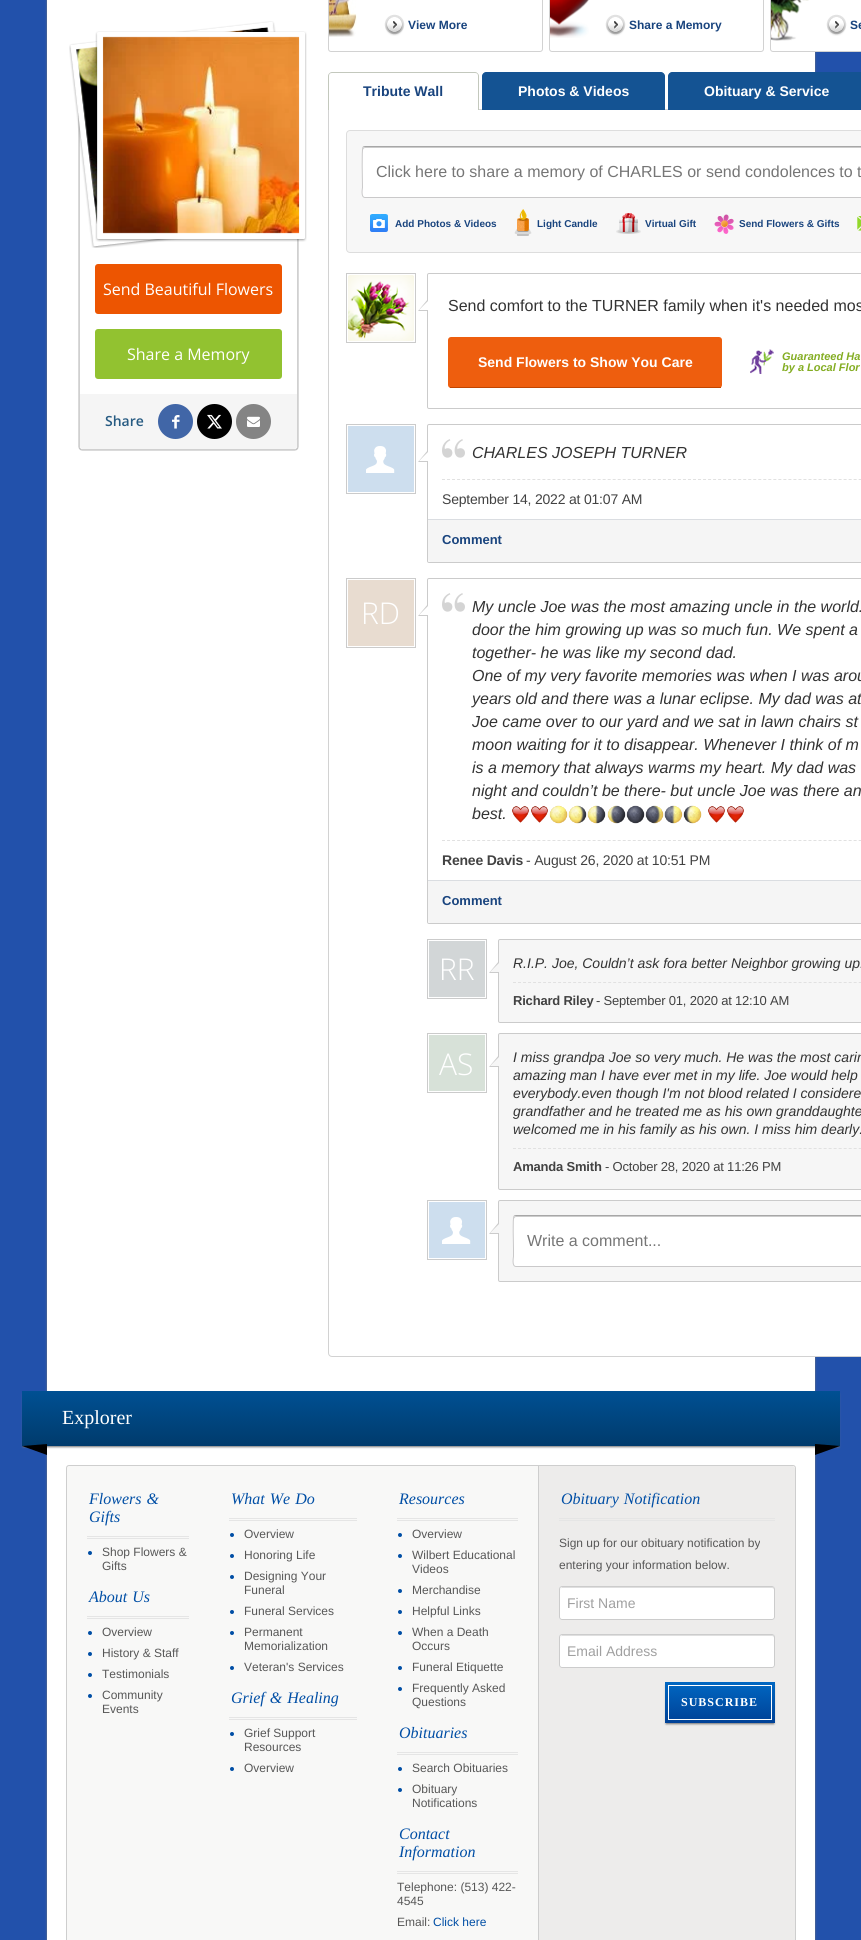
#include <cairo/cairo.h>
#include <math.h>
#include <stddef.h>

static cairo_t *cr;

static void use_color(int r, int g, int b) {
  cairo_set_source_rgb(cr, r / 255.0, g / 255.0, b / 255.0);
}

static void text(double x, double y, const char *s, const char *family, double size, int italic, int bold, int r, int g, int b) {
  cairo_select_font_face(cr, family, italic ? CAIRO_FONT_SLANT_ITALIC : CAIRO_FONT_SLANT_NORMAL,
    bold ? CAIRO_FONT_WEIGHT_BOLD : CAIRO_FONT_WEIGHT_NORMAL);
  cairo_set_font_size(cr, size);
  use_color(r, g, b);
  cairo_move_to(cr, x, y);
  cairo_show_text(cr, s);
}

static void spaced_text(double x, double y, const char *s, double letter, double word) {
  cairo_move_to(cr, x, y);
  while (*s) {
    char ch[5] = {0};
    int n = 0;
    do ch[n++] = *s++; while ((*s & 0xC0) == 0x80);
    cairo_show_text(cr, ch);
    cairo_rel_move_to(cr, letter + word * (*ch == ' '), 0);
  }
}

static void box(double x, double y, double w, double h, int r, int g, int b) {
  use_color(r, g, b);
  cairo_rectangle(cr, x, y, w, h);
  cairo_fill(cr);
}

static void round_rect(double x, double y, double w, double h, double r) {
  cairo_new_sub_path(cr);
  cairo_arc(cr, x + w - r, y + h - r, r, 0, M_PI / 2);
  cairo_arc(cr, x + r, y + h - r, r, M_PI / 2, M_PI);
  cairo_arc(cr, x + r, y + r, r, M_PI, 1.5 * M_PI);
  cairo_arc(cr, x + w - r, y + r, r, 1.5 * M_PI, 2 * M_PI);
  cairo_close_path(cr);
}

static void shadow(double x, double y, double w, double h, double r, double blur, double alpha) {
  cairo_push_group_with_content(cr, CAIRO_CONTENT_ALPHA);
  cairo_set_operator(cr, CAIRO_OPERATOR_SOURCE);
  for (int i = 15; i >= -15 && fmin(w, h) + blur * i / 3 > 0; i -= 2) {
    double e = blur * i / 6;
    cairo_set_source_rgba(cr, 0, 0, 0, alpha * erfc((i - 1) / 8.5) / 2);
    round_rect(x - e, y - e, w + 2 * e, h + 2 * e, fmax(0, fmin(r + e + blur * .6, fmin(w, h) / 2 + e)));
    cairo_fill(cr);
  }
  cairo_pattern_t *soft = cairo_pop_group(cr);
  cairo_mask(cr, soft);
  cairo_pattern_destroy(soft);
}

static void picture(const char *path, double x, double y, double w, double h) {
  cairo_surface_t *image = cairo_image_surface_create_from_png(path);
  cairo_save(cr);
  cairo_set_source_surface(cr, image, x, y);
  cairo_rectangle(cr, x, y, w, h);
  cairo_fill(cr);
  cairo_restore(cr);
  cairo_surface_destroy(image);
}

static void draw(void) {
  use_color(34, 81, 171);
  cairo_paint(cr);
  use_color(119, 119, 119);
  shadow(47, -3, 768, 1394, 0, 1, 1);
  box(47, 0, 768, 1391, 255, 255, 255);
  use_color(0, 0, 0);
  shadow(79, 50, 219, 400, 3, 0.5, 0.6);
  use_color(255, 255, 255);
  round_rect(79.5, 50.5, 218, 399, 2.5);
  cairo_fill_preserve(cr);
  use_color(208, 208, 208);
  cairo_set_line_width(cr, 1);
  cairo_stroke(cr);
  picture("img_01.png", 69, 21, 238, 227);
  picture("img_02.png", 102, 36, 198, 198);
  use_color(237, 85, 1);
  round_rect(95, 264, 187, 50, 3);
  cairo_fill(cr);
  use_color(146, 194, 48);
  round_rect(95, 329, 187, 50, 3);
  cairo_fill(cr);
  use_color(245, 245, 245);
  cairo_new_path(cr);
  cairo_move_to(cr, 80, 394);
  cairo_line_to(cr, 297, 394);
  cairo_line_to(cr, 297, 446);
  cairo_curve_to(cr, 297, 447.5, 295.5, 449, 294, 449);
  cairo_line_to(cr, 83, 449);
  cairo_curve_to(cr, 81.5, 449, 80, 447.5, 80, 446);
  cairo_close_path(cr);
  cairo_fill(cr);
  use_color(65, 102, 167);
  cairo_arc(cr, 175.5, 421.5, 17.5, 0, 2 * M_PI);
  cairo_fill(cr);
  picture("img_03.png", 172, 415, 8, 14);
  use_color(0, 0, 0);
  cairo_arc(cr, 214.5, 421.5, 17.5, 0, 2 * M_PI);
  cairo_fill(cr);
  picture("img_04.png", 207, 414, 15, 15);
  use_color(132, 132, 132);
  cairo_arc(cr, 253.5, 421.5, 17.5, 0, 2 * M_PI);
  cairo_fill(cr);
  picture("img_05.png", 247, 416, 13, 11);
  round_rect(328.5, -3.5, 214, 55, 2.5);
  use_color(210, 210, 210);
  cairo_stroke(cr);
  picture("img_06.png", 329, 0, 28, 37);
  picture("img_07.png", 384, 14, 21, 22);
  round_rect(549.5, -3.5, 214, 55, 2.5);
  cairo_stroke(cr);
  picture("img_08.png", 550, 0, 39, 38);
  picture("img_07.png", 605, 14, 21, 22);
  use_color(255, 255, 255);
  round_rect(770.5, -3.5, 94, 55, 2.5);
  cairo_fill_preserve(cr);
  use_color(210, 210, 210);
  cairo_stroke(cr);
  picture("img_09.png", 771, 0, 38, 41);
  picture("img_07.png", 826, 14, 21, 22);
  use_color(255, 255, 255);
  cairo_new_path(cr);
  cairo_move_to(cr, 328.5, 109.5);
  cairo_line_to(cr, 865.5, 109.5);
  cairo_line_to(cr, 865.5, 1353);
  cairo_curve_to(cr, 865.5, 1355, 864, 1356.5, 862, 1356.5);
  cairo_line_to(cr, 332, 1356.5);
  cairo_curve_to(cr, 330, 1356.5, 328.5, 1355, 328.5, 1353);
  cairo_close_path(cr);
  cairo_fill_preserve(cr);
  use_color(210, 210, 210);
  cairo_stroke(cr);
  use_color(255, 255, 255);
  cairo_new_path(cr);
  cairo_move_to(cr, 332, 73);
  cairo_line_to(cr, 475, 73);
  cairo_curve_to(cr, 476.5, 73, 478, 74.5, 478, 76);
  cairo_line_to(cr, 478, 110);
  cairo_line_to(cr, 329, 110);
  cairo_line_to(cr, 329, 76);
  cairo_curve_to(cr, 329, 74.5, 330.5, 73, 332, 73);
  cairo_close_path(cr);
  cairo_fill(cr);
  use_color(195, 200, 189);
  cairo_set_fill_rule(cr, CAIRO_FILL_RULE_EVEN_ODD);
  cairo_new_path(cr);
  cairo_move_to(cr, 332, 72);
  cairo_line_to(cr, 475, 72);
  cairo_curve_to(cr, 477, 72, 479, 74, 479, 76);
  cairo_line_to(cr, 479, 110);
  cairo_line_to(cr, 328, 110);
  cairo_line_to(cr, 328, 76);
  cairo_curve_to(cr, 328, 74, 330, 72, 332, 72);
  cairo_close_path(cr);
  cairo_move_to(cr, 332, 73);
  cairo_line_to(cr, 475, 73);
  cairo_curve_to(cr, 477, 73, 478, 74, 478, 76);
  cairo_line_to(cr, 478, 110);
  cairo_line_to(cr, 329, 110);
  cairo_line_to(cr, 329, 76);
  cairo_curve_to(cr, 329, 74, 330, 73, 332, 73);
  cairo_close_path(cr);
  cairo_fill(cr);
  use_color(20, 83, 147);
  cairo_new_path(cr);
  cairo_move_to(cr, 486, 72);
  cairo_line_to(cr, 661, 72);
  cairo_curve_to(cr, 663, 72, 665, 74, 665, 76);
  cairo_line_to(cr, 665, 110);
  cairo_line_to(cr, 482, 110);
  cairo_line_to(cr, 482, 76);
  cairo_curve_to(cr, 482, 74, 484, 72, 486, 72);
  cairo_close_path(cr);
  cairo_fill(cr);
  cairo_new_path(cr);
  cairo_move_to(cr, 672, 72);
  cairo_line_to(cr, 861, 72);
  cairo_curve_to(cr, 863, 72, 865, 74, 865, 76);
  cairo_line_to(cr, 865, 110);
  cairo_line_to(cr, 668, 110);
  cairo_line_to(cr, 668, 76);
  cairo_curve_to(cr, 668, 74, 670, 72, 672, 72);
  cairo_close_path(cr);
  cairo_fill(cr);
  use_color(247, 247, 247);
  round_rect(346.5, 130.5, 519, 122, 3.5);
  cairo_fill_preserve(cr);
  use_color(221, 221, 221);
  cairo_stroke(cr);
  use_color(255, 255, 255);
  round_rect(362, 146, 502, 52, 3);
  cairo_fill(cr);
  use_color(204, 204, 204);
  cairo_set_fill_rule(cr, CAIRO_FILL_RULE_WINDING);
  cairo_new_path(cr);
  cairo_move_to(cr, 365, 148);
  cairo_line_to(cr, 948, 148);
  cairo_curve_to(cr, 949, 148, 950, 149, 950, 150);
  cairo_curve_to(cr, 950, 149, 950, 147, 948, 147);
  cairo_line_to(cr, 365, 147);
  cairo_line_to(cr, 363, 148);
  cairo_line_to(cr, 363, 150);
  cairo_curve_to(cr, 363, 149, 364, 148, 365, 148);
  cairo_close_path(cr);
  cairo_fill(cr);
  cairo_new_path(cr);
  cairo_move_to(cr, 363, 147);
  cairo_line_to(cr, 365, 146.5);
  cairo_line_to(cr, 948, 146.5);
  cairo_line_to(cr, 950, 147);
  use_color(167, 167, 167);
  cairo_stroke(cr);
  cairo_new_path(cr);
  cairo_move_to(cr, 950, 147);
  cairo_curve_to(cr, 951.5, 149, 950.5, 182.5, 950.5, 187.5);
  cairo_curve_to(cr, 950.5, 188, 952.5, 197.5, 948, 197.5);
  cairo_line_to(cr, 365, 197.5);
  cairo_curve_to(cr, 360.5, 197.5, 362.5, 188, 362.5, 187.5);
  cairo_curve_to(cr, 362.5, 182.5, 361.5, 149, 363, 147);
  use_color(202, 201, 202);
  cairo_stroke(cr);
  picture("img_10.png", 370, 212, 18, 20);
  picture("img_11.png", 514, 209, 18, 27);
  picture("img_12.png", 616, 213, 25, 21);
  picture("img_13.png", 714, 214, 20, 20);
  picture("img_14.png", 857, 216, 4, 15);
  cairo_rectangle(cr, 346.5, 273.5, 69, 69);
  use_color(203, 203, 203);
  cairo_stroke(cr);
  picture("img_15.png", 348, 275, 66, 66);
  round_rect(427.5, 273.5, 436, 135, 1.5);
  cairo_stroke(cr);
  cairo_new_path(cr);
  cairo_move_to(cr, 428, 311);
  cairo_line_to(cr, 418, 311);
  cairo_line_to(cr, 428, 299);
  cairo_close_path(cr);
  cairo_fill(cr);
  use_color(255, 255, 255);
  cairo_new_path(cr);
  cairo_move_to(cr, 429, 310);
  cairo_line_to(cr, 419, 310);
  cairo_line_to(cr, 429, 300);
  cairo_close_path(cr);
  cairo_fill(cr);
  use_color(238, 94, 14);
  round_rect(448, 337, 274, 51, 3);
  cairo_fill(cr);
  box(450, 387, 271, 1, 193, 69, 0);
  picture("img_16.png", 750, 349, 24, 25);
  cairo_rectangle(cr, 346.5, 424.5, 69, 69);
  use_color(203, 203, 203);
  cairo_stroke(cr);
  box(348, 426, 66, 66, 205, 222, 238);
  picture("img_17.png", 366, 446, 29, 27);
  round_rect(427.5, 424.5, 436, 138, 1.5);
  use_color(203, 203, 203);
  cairo_stroke(cr);
  cairo_new_path(cr);
  cairo_move_to(cr, 428, 462);
  cairo_line_to(cr, 418, 462);
  cairo_line_to(cr, 428, 450);
  cairo_close_path(cr);
  cairo_fill(cr);
  picture("img_18.png", 442, 439, 23, 19);
  use_color(255, 255, 255);
  cairo_new_path(cr);
  cairo_move_to(cr, 429, 461);
  cairo_line_to(cr, 419, 461);
  cairo_line_to(cr, 429, 451);
  cairo_close_path(cr);
  cairo_fill(cr);
  cairo_new_path(cr);
  cairo_move_to(cr, 442, 479.5);
  cairo_line_to(cr, 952, 479.5);
  use_color(225, 225, 225);
  cairo_set_dash(cr, (double[]){3, 2.02}, 2, 0);
  cairo_stroke(cr);
  use_color(245, 245, 245);
  cairo_new_path(cr);
  cairo_move_to(cr, 428, 519);
  cairo_line_to(cr, 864, 519);
  cairo_line_to(cr, 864, 559);
  cairo_curve_to(cr, 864, 560.5, 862.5, 562, 861, 562);
  cairo_line_to(cr, 431, 562);
  cairo_curve_to(cr, 429.5, 562, 428, 560.5, 428, 559);
  cairo_close_path(cr);
  cairo_fill(cr);
  box(428, 519, 433, 1, 218, 221, 225);
  cairo_rectangle(cr, 346.5, 578.5, 69, 69);
  use_color(203, 203, 203);
  cairo_set_dash(cr, NULL, 0, 0);
  cairo_stroke(cr);
  box(348, 580, 66, 66, 232, 220, 208);
  round_rect(427.5, 578.5, 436, 345, 1.5);
  use_color(203, 203, 203);
  cairo_stroke(cr);
  cairo_new_path(cr);
  cairo_move_to(cr, 428, 616);
  cairo_line_to(cr, 418, 616);
  cairo_line_to(cr, 428, 604);
  cairo_close_path(cr);
  cairo_fill(cr);
  picture("img_18.png", 442, 593, 23, 19);
  picture("img_19.png", 512, 806, 17, 17);
  picture("img_19.png", 531, 806, 17, 17);
  picture("img_20.png", 549, 805, 19, 19);
  picture("img_21.png", 568, 805, 19, 19);
  picture("img_22.png", 587, 805, 19, 19);
  picture("img_23.png", 607, 805, 19, 19);
  picture("img_24.png", 626, 805, 19, 19);
  picture("img_25.png", 645, 805, 19, 19);
  picture("img_26.png", 664, 805, 19, 19);
  picture("img_27.png", 683, 805, 19, 19);
  picture("img_28.png", 708, 806, 17, 17);
  picture("img_28.png", 727, 806, 17, 17);
  use_color(255, 255, 255);
  cairo_new_path(cr);
  cairo_move_to(cr, 429, 615);
  cairo_line_to(cr, 419, 615);
  cairo_line_to(cr, 429, 605);
  cairo_close_path(cr);
  cairo_fill(cr);
  cairo_new_path(cr);
  cairo_move_to(cr, 442, 840.5);
  cairo_line_to(cr, 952, 840.5);
  use_color(225, 225, 225);
  cairo_set_dash(cr, (double[]){3, 2.02}, 2, 0);
  cairo_stroke(cr);
  use_color(245, 245, 245);
  cairo_new_path(cr);
  cairo_move_to(cr, 428, 880);
  cairo_line_to(cr, 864, 880);
  cairo_line_to(cr, 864, 920);
  cairo_curve_to(cr, 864, 921.5, 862.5, 923, 861, 923);
  cairo_line_to(cr, 431, 923);
  cairo_curve_to(cr, 429.5, 923, 428, 921.5, 428, 920);
  cairo_close_path(cr);
  cairo_fill(cr);
  box(428, 880, 433, 1, 218, 221, 225);
  cairo_rectangle(cr, 427.5, 939.5, 59, 59);
  use_color(203, 203, 203);
  cairo_set_dash(cr, NULL, 0, 0);
  cairo_stroke(cr);
  box(429, 941, 56, 56, 210, 214, 215);
  use_color(246, 246, 246);
  round_rect(498.5, 939.5, 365, 83, 1.5);
  cairo_fill_preserve(cr);
  use_color(203, 203, 203);
  cairo_stroke(cr);
  cairo_new_path(cr);
  cairo_move_to(cr, 499, 973);
  cairo_line_to(cr, 489, 973);
  cairo_line_to(cr, 499, 961);
  cairo_close_path(cr);
  cairo_fill(cr);
  use_color(246, 246, 246);
  cairo_new_path(cr);
  cairo_move_to(cr, 500, 972);
  cairo_line_to(cr, 490, 972);
  cairo_line_to(cr, 500, 962);
  cairo_close_path(cr);
  cairo_fill(cr);
  cairo_new_path(cr);
  cairo_move_to(cr, 513, 982.5);
  cairo_line_to(cr, 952, 982.5);
  use_color(225, 225, 225);
  cairo_set_dash(cr, (double[]){3, 2.01}, 2, 0);
  cairo_stroke(cr);
  cairo_rectangle(cr, 427.5, 1033.5, 59, 59);
  use_color(203, 203, 203);
  cairo_set_dash(cr, NULL, 0, 0);
  cairo_stroke(cr);
  box(429, 1035, 56, 56, 215, 225, 216);
  use_color(246, 246, 246);
  round_rect(498.5, 1033.5, 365, 156, 1.5);
  cairo_fill_preserve(cr);
  use_color(203, 203, 203);
  cairo_stroke(cr);
  cairo_new_path(cr);
  cairo_move_to(cr, 499, 1067);
  cairo_line_to(cr, 489, 1067);
  cairo_line_to(cr, 499, 1055);
  cairo_close_path(cr);
  cairo_fill(cr);
  use_color(246, 246, 246);
  cairo_new_path(cr);
  cairo_move_to(cr, 500, 1066);
  cairo_line_to(cr, 490, 1066);
  cairo_line_to(cr, 500, 1056);
  cairo_close_path(cr);
  cairo_fill(cr);
  cairo_new_path(cr);
  cairo_move_to(cr, 513, 1148.5);
  cairo_line_to(cr, 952, 1148.5);
  use_color(225, 225, 225);
  cairo_set_dash(cr, (double[]){3, 2.01}, 2, 0);
  cairo_stroke(cr);
  cairo_rectangle(cr, 427.5, 1200.5, 59, 59);
  use_color(203, 203, 203);
  cairo_set_dash(cr, NULL, 0, 0);
  cairo_stroke(cr);
  box(429, 1202, 56, 56, 205, 222, 238);
  picture("img_17.png", 442, 1217, 29, 27);
  use_color(246, 246, 246);
  round_rect(498.5, 1200.5, 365, 81, 1.5);
  cairo_fill_preserve(cr);
  use_color(203, 203, 203);
  cairo_stroke(cr);
  cairo_new_path(cr);
  cairo_move_to(cr, 499, 1234);
  cairo_line_to(cr, 489, 1234);
  cairo_line_to(cr, 499, 1222);
  cairo_close_path(cr);
  cairo_fill(cr);
  use_color(246, 246, 246);
  cairo_new_path(cr);
  cairo_move_to(cr, 500, 1233);
  cairo_line_to(cr, 490, 1233);
  cairo_line_to(cr, 500, 1223);
  cairo_close_path(cr);
  cairo_fill(cr);
  use_color(255, 255, 255);
  round_rect(513, 1215, 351, 52, 3);
  cairo_fill(cr);
  use_color(204, 204, 204);
  cairo_new_path(cr);
  cairo_move_to(cr, 516, 1217);
  cairo_line_to(cr, 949, 1217);
  cairo_curve_to(cr, 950, 1217, 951, 1218, 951, 1219);
  cairo_curve_to(cr, 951, 1218, 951, 1216, 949, 1216);
  cairo_line_to(cr, 516, 1216);
  cairo_line_to(cr, 514, 1217);
  cairo_line_to(cr, 514, 1219);
  cairo_curve_to(cr, 514, 1218, 515, 1217, 516, 1217);
  cairo_close_path(cr);
  cairo_fill(cr);
  cairo_new_path(cr);
  cairo_move_to(cr, 514, 1216);
  cairo_line_to(cr, 516, 1215.5);
  cairo_line_to(cr, 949, 1215.5);
  cairo_line_to(cr, 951, 1216);
  use_color(167, 167, 167);
  cairo_stroke(cr);
  cairo_new_path(cr);
  cairo_move_to(cr, 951, 1216);
  cairo_curve_to(cr, 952.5, 1218, 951.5, 1244.5, 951.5, 1248.5);
  cairo_line_to(cr, 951.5, 1256.5);
  cairo_curve_to(cr, 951.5, 1257, 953.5, 1266.5, 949, 1266.5);
  cairo_line_to(cr, 516, 1266.5);
  cairo_curve_to(cr, 511.5, 1266.5, 513.5, 1257, 513.5, 1256.5);
  cairo_line_to(cr, 513.5, 1248.5);
  cairo_curve_to(cr, 513.5, 1244.5, 512.5, 1218, 514, 1216);
  use_color(202, 201, 202);
  cairo_stroke(cr);
  use_color(119, 119, 119);
  shadow(47, 1446, 768, 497, 0, 1, 1);
  box(47, 1446, 768, 494, 255, 255, 255);
  use_color(119, 119, 119);
  shadow(23, 1394, 816, 53, 0, 1, 1);
  picture("img_29.png", 22, 1391, 818, 55);
  use_color(0, 0, 0);
  cairo_new_path(cr);
  cairo_move_to(cr, 47, 1444);
  cairo_line_to(cr, 47, 1455);
  cairo_line_to(cr, 22, 1446);
  cairo_close_path(cr);
  cairo_fill(cr);
  cairo_new_path(cr);
  cairo_move_to(cr, 815, 1455);
  cairo_line_to(cr, 815, 1444);
  cairo_line_to(cr, 840, 1446);
  cairo_close_path(cr);
  cairo_fill(cr);
  use_color(248, 248, 247);
  round_rect(66.5, 1465.5, 729, 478, 2.5);
  cairo_fill_preserve(cr);
  use_color(206, 206, 206);
  cairo_stroke(cr);
  box(87, 1536, 102, 1, 229, 229, 229);
  box(87, 1538, 102, 1, 229, 229, 229);
  use_color(0, 78, 165);
  cairo_arc(cr, 90, 1553, 2, 0, 2 * M_PI);
  cairo_fill(cr);
  box(87, 1616, 102, 1, 229, 229, 229);
  box(87, 1618, 102, 1, 229, 229, 229);
  use_color(0, 78, 165);
  cairo_arc(cr, 90, 1633, 2, 0, 2 * M_PI);
  cairo_fill(cr);
  cairo_arc(cr, 90, 1654, 2, 0, 2 * M_PI);
  cairo_fill(cr);
  cairo_arc(cr, 90, 1675, 2, 0, 2 * M_PI);
  cairo_fill(cr);
  cairo_arc(cr, 90, 1696, 2, 0, 2 * M_PI);
  cairo_fill(cr);
  box(229, 1518, 128, 1, 229, 229, 229);
  box(229, 1520, 128, 1, 229, 229, 229);
  use_color(0, 78, 165);
  cairo_arc(cr, 232, 1535, 2, 0, 2 * M_PI);
  cairo_fill(cr);
  cairo_arc(cr, 232, 1556, 2, 0, 2 * M_PI);
  cairo_fill(cr);
  cairo_arc(cr, 232, 1577, 2, 0, 2 * M_PI);
  cairo_fill(cr);
  cairo_arc(cr, 232, 1612, 2, 0, 2 * M_PI);
  cairo_fill(cr);
  cairo_arc(cr, 232, 1633, 2, 0, 2 * M_PI);
  cairo_fill(cr);
  cairo_arc(cr, 232, 1668, 2, 0, 2 * M_PI);
  cairo_fill(cr);
  box(229, 1717, 128, 1, 229, 229, 229);
  box(229, 1719, 128, 1, 229, 229, 229);
  use_color(0, 78, 165);
  cairo_arc(cr, 232, 1734, 2, 0, 2 * M_PI);
  cairo_fill(cr);
  cairo_arc(cr, 232, 1769, 2, 0, 2 * M_PI);
  cairo_fill(cr);
  box(397, 1518, 121, 1, 229, 229, 229);
  box(397, 1520, 121, 1, 229, 229, 229);
  use_color(0, 78, 165);
  cairo_arc(cr, 400, 1535, 2, 0, 2 * M_PI);
  cairo_fill(cr);
  cairo_arc(cr, 400, 1556, 2, 0, 2 * M_PI);
  cairo_fill(cr);
  cairo_arc(cr, 400, 1591, 2, 0, 2 * M_PI);
  cairo_fill(cr);
  cairo_arc(cr, 400, 1612, 2, 0, 2 * M_PI);
  cairo_fill(cr);
  cairo_arc(cr, 400, 1633, 2, 0, 2 * M_PI);
  cairo_fill(cr);
  cairo_arc(cr, 400, 1668, 2, 0, 2 * M_PI);
  cairo_fill(cr);
  cairo_arc(cr, 400, 1689, 2, 0, 2 * M_PI);
  cairo_fill(cr);
  box(397, 1752, 121, 1, 229, 229, 229);
  box(397, 1754, 121, 1, 229, 229, 229);
  use_color(0, 78, 165);
  cairo_arc(cr, 400, 1769, 2, 0, 2 * M_PI);
  cairo_fill(cr);
  cairo_arc(cr, 400, 1790, 2, 0, 2 * M_PI);
  cairo_fill(cr);
  box(397, 1871, 121, 1, 229, 229, 229);
  box(397, 1873, 121, 1, 229, 229, 229);
  use_color(237, 236, 235);
  cairo_new_path(cr);
  cairo_move_to(cr, 538, 1466);
  cairo_line_to(cr, 792, 1466);
  cairo_curve_to(cr, 793.5, 1466, 795, 1467.5, 795, 1469);
  cairo_line_to(cr, 795, 1940);
  cairo_curve_to(cr, 795, 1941.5, 793.5, 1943, 792, 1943);
  cairo_line_to(cr, 538, 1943);
  cairo_close_path(cr);
  cairo_fill(cr);
  box(538, 1465, 1, 475, 206, 206, 206);
  box(559, 1518, 216, 1, 229, 229, 229);
  box(559, 1520, 216, 1, 229, 229, 229);
  use_color(255, 255, 255);
  round_rect(559, 1586, 216, 34, 3);
  cairo_fill(cr);
  use_color(223, 223, 223);
  cairo_new_path(cr);
  cairo_move_to(cr, 562, 1588);
  cairo_line_to(cr, 772, 1588);
  cairo_curve_to(cr, 773, 1588, 774, 1589, 774, 1590);
  cairo_curve_to(cr, 774, 1589, 774, 1587, 772, 1587);
  cairo_line_to(cr, 562, 1587);
  cairo_line_to(cr, 561, 1588);
  cairo_line_to(cr, 560, 1590);
  cairo_curve_to(cr, 560, 1589, 561, 1588, 562, 1588);
  cairo_close_path(cr);
  cairo_fill(cr);
  round_rect(559.5, 1586.5, 215, 33, 2.5);
  use_color(204, 204, 204);
  cairo_stroke(cr);
  use_color(255, 255, 255);
  round_rect(559, 1634, 216, 34, 3);
  cairo_fill(cr);
  use_color(223, 223, 223);
  cairo_new_path(cr);
  cairo_move_to(cr, 562, 1636);
  cairo_line_to(cr, 772, 1636);
  cairo_curve_to(cr, 773, 1636, 774, 1637, 774, 1638);
  cairo_curve_to(cr, 774, 1637, 774, 1635, 772, 1635);
  cairo_line_to(cr, 562, 1635);
  cairo_line_to(cr, 561, 1636);
  cairo_line_to(cr, 560, 1638);
  cairo_curve_to(cr, 560, 1637, 561, 1636, 562, 1636);
  cairo_close_path(cr);
  cairo_fill(cr);
  round_rect(559.5, 1634.5, 215, 33, 2.5);
  use_color(204, 204, 204);
  cairo_stroke(cr);
  use_color(119, 119, 119);
  shadow(666, 1685, 108, 39, 0, 1, 1);
  picture("img_30.png", 665, 1682, 110, 41);
  cairo_rectangle(cr, 668.5, 1685.5, 103, 34);
  use_color(255, 255, 255);
  cairo_stroke(cr);
  text(103, 295, "Send Beautiful Flowers", "Open Sans", 16, 0, 0, 255, 255, 255);
  text(127, 360, "Share a Memory", "Open Sans", 16, 0, 0, 255, 255, 255);
  text(105, 426, "Share", "Open Sans SemiBold", 14, 0, 0, 39, 91, 130);
  text(408, 29, "View More", "Liberation Sans", 12, 0, 1, 25, 68, 126);
  text(629, 29, "Share a Memory", "Liberation Sans", 12, 0, 1, 25, 68, 126);
  text(850, 29, "Se", "Liberation Sans", 12, 0, 1, 25, 68, 126);
  text(363, 96, "Tribute Wall", "Liberation Sans", 14, 0, 1, 25, 68, 126);
  text(518, 96, "Photos & Videos", "Liberation Sans", 14, 0, 1, 255, 255, 255);
  text(704, 96, "Obituary & Service", "Liberation Sans", 14, 0, 1, 255, 255, 255);
  text(376, 177, "Click here to share a memory of CHARLES or send condolences to t", "Liberation Sans", 16, 0, 0, 118, 118, 118);
  text(395, 227, "Add Photos & Videos", "Liberation Sans", 10, 0, 1, 25, 68, 126);
  text(537, 227, "Light Candle", "Liberation Sans", 10, 0, 1, 25, 68, 126);
  text(645, 227, "Virtual Gift", "Liberation Sans", 10, 0, 1, 25, 68, 126);
  text(739, 227, "Send Flowers & Gifts", "Liberation Sans", 10, 0, 1, 25, 68, 126);
  text(448, 311, "Send comfort to the TURNER family when it's needed mos", "Liberation Sans", 16, 0, 0, 51, 51, 51);
  text(478, 367, "Send Flowers to Show You Care", "Liberation Sans", 14, 0, 1, 255, 255, 255);
  text(782, 360, "Guaranteed Ha", "Liberation Sans", 11, 1, 1, 132, 173, 35);
  text(782, 371, "by a Local Flor", "Liberation Sans", 11, 1, 1, 132, 173, 35);
  text(472, 458, "CHARLES JOSEPH TURNER", "Liberation Sans", 16, 1, 0, 51, 51, 51);
  cairo_select_font_face(cr, "Liberation Sans", CAIRO_FONT_SLANT_NORMAL, CAIRO_FONT_WEIGHT_NORMAL);
  cairo_set_font_size(cr, 14);
  use_color(66, 66, 66);
  spaced_text(442, 504, "September 14, 2022 at 01:07 AM", -0.2, 0);
  text(442, 544, "Comment", "Liberation Sans", 13, 0, 1, 25, 68, 126);
  text(361, 624, "RD", "Open Sans Light", 30, 0, 0, 255, 255, 255);
  text(472, 612, "My uncle Joe was the most amazing uncle in the world.", "Liberation Sans", 16, 1, 0, 51, 51, 51);
  text(472, 635, "door the him growing up was so much fun. We spent a", "Liberation Sans", 16, 1, 0, 51, 51, 51);
  text(472, 658, "together- he was like my second dad.", "Liberation Sans", 16, 1, 0, 51, 51, 51);
  text(472, 681, "One of my very favorite memories was when I was arou", "Liberation Sans", 16, 1, 0, 51, 51, 51);
  text(472, 704, "years old and there was a lunar eclipse. My dad was at", "Liberation Sans", 16, 1, 0, 51, 51, 51);
  text(472, 727, "Joe came over to our yard and we sat in lawn chairs st", "Liberation Sans", 16, 1, 0, 51, 51, 51);
  text(472, 750, "moon waiting for it to disappear. Whenever I think of m", "Liberation Sans", 16, 1, 0, 51, 51, 51);
  text(472, 773, "is a memory that always warms my heart. My dad was", "Liberation Sans", 16, 1, 0, 51, 51, 51);
  text(472, 796, "night and couldn’t be there- but uncle Joe was there an", "Liberation Sans", 16, 1, 0, 51, 51, 51);
  text(472, 819, "best.", "Liberation Sans", 16, 1, 0, 51, 51, 51);
  cairo_select_font_face(cr, "Liberation Sans", CAIRO_FONT_SLANT_NORMAL, CAIRO_FONT_WEIGHT_BOLD);
  cairo_set_font_size(cr, 14);
  use_color(66, 66, 66);
  spaced_text(442, 865, "Renee Davis", -0.2, 0);
  cairo_select_font_face(cr, "Liberation Sans", CAIRO_FONT_SLANT_NORMAL, CAIRO_FONT_WEIGHT_NORMAL);
  spaced_text(526, 865, "- August 26, 2020 at 10:51 PM", -0.2, 0);
  text(442, 905, "Comment", "Liberation Sans", 13, 0, 1, 25, 68, 126);
  text(439, 980, "RR", "Open Sans Light", 30, 0, 0, 255, 255, 255);
  text(513, 968, "R.I.P. Joe, Couldn’t ask fora better Neighbor growing up.", "Liberation Sans", 14, 1, 0, 51, 51, 51);
  cairo_select_font_face(cr, "Liberation Sans", CAIRO_FONT_SLANT_NORMAL, CAIRO_FONT_WEIGHT_BOLD);
  cairo_set_font_size(cr, 13);
  use_color(66, 66, 66);
  spaced_text(513, 1005, "Richard Riley", -0.2, 0);
  cairo_select_font_face(cr, "Liberation Sans", CAIRO_FONT_SLANT_NORMAL, CAIRO_FONT_WEIGHT_NORMAL);
  spaced_text(596, 1005, "- September 01, 2020 at 12:10 AM", -0.2, 0);
  text(439, 1075, "AS", "Open Sans Light", 30, 0, 0, 255, 255, 255);
  text(513, 1062, "I miss grandpa Joe so very much. He was the most carin", "Liberation Sans", 14, 1, 0, 51, 51, 51);
  text(513, 1080, "amazing man I have ever met in my life. Joe would help", "Liberation Sans", 14, 1, 0, 51, 51, 51);
  text(513, 1098, "everybody.even though I'm not blood related I considere", "Liberation Sans", 14, 1, 0, 51, 51, 51);
  text(513, 1116, "grandfather and he treated me as his own granddaughte", "Liberation Sans", 14, 1, 0, 51, 51, 51);
  text(513, 1134, "welcomed me in his family as his own. I miss him dearly.", "Liberation Sans", 14, 1, 0, 51, 51, 51);
  cairo_select_font_face(cr, "Liberation Sans", CAIRO_FONT_SLANT_NORMAL, CAIRO_FONT_WEIGHT_BOLD);
  cairo_set_font_size(cr, 13);
  use_color(66, 66, 66);
  spaced_text(513, 1171, "Amanda Smith", -0.2, 0);
  cairo_select_font_face(cr, "Liberation Sans", CAIRO_FONT_SLANT_NORMAL, CAIRO_FONT_WEIGHT_NORMAL);
  spaced_text(605, 1171, "- October 28, 2020 at 11:26 PM", -0.2, 0);
  text(527, 1246, "Write a comment...", "Liberation Sans", 16, 0, 0, 118, 118, 118);
  text(62, 1424, "Explorer", "Liberation Serif", 20, 0, 0, 255, 255, 255);
  cairo_select_font_face(cr, "Liberation Serif", CAIRO_FONT_SLANT_ITALIC, CAIRO_FONT_WEIGHT_NORMAL);
  cairo_set_font_size(cr, 16);
  use_color(0, 78, 165);
  spaced_text(89, 1504, "Flowers &", 0, 1);
  text(89, 1522, "Gifts", "Liberation Serif", 16, 1, 0, 0, 78, 165);
  text(102, 1556, "Shop Flowers &", "Liberation Sans", 12, 0, 0, 87, 87, 87);
  text(102, 1570, "Gifts", "Liberation Sans", 12, 0, 0, 87, 87, 87);
  cairo_select_font_face(cr, "Liberation Serif", CAIRO_FONT_SLANT_ITALIC, CAIRO_FONT_WEIGHT_NORMAL);
  cairo_set_font_size(cr, 16);
  use_color(0, 78, 165);
  spaced_text(89, 1602, "About Us", 0, 1);
  text(102, 1636, "Overview", "Liberation Sans", 12, 0, 0, 87, 87, 87);
  text(102, 1657, "History & Staff", "Liberation Sans", 12, 0, 0, 87, 87, 87);
  text(102, 1678, "Testimonials", "Liberation Sans", 12, 0, 0, 87, 87, 87);
  text(102, 1699, "Community", "Liberation Sans", 12, 0, 0, 87, 87, 87);
  text(102, 1713, "Events", "Liberation Sans", 12, 0, 0, 87, 87, 87);
  cairo_select_font_face(cr, "Liberation Serif", CAIRO_FONT_SLANT_ITALIC, CAIRO_FONT_WEIGHT_NORMAL);
  cairo_set_font_size(cr, 16);
  use_color(0, 78, 165);
  spaced_text(231, 1504, "What We Do", 0, 1);
  text(244, 1538, "Overview", "Liberation Sans", 12, 0, 0, 87, 87, 87);
  text(244, 1559, "Honoring Life", "Liberation Sans", 12, 0, 0, 87, 87, 87);
  text(244, 1580, "Designing Your", "Liberation Sans", 12, 0, 0, 87, 87, 87);
  text(244, 1594, "Funeral", "Liberation Sans", 12, 0, 0, 87, 87, 87);
  text(244, 1615, "Funeral Services", "Liberation Sans", 12, 0, 0, 87, 87, 87);
  text(244, 1636, "Permanent", "Liberation Sans", 12, 0, 0, 87, 87, 87);
  text(244, 1650, "Memorialization", "Liberation Sans", 12, 0, 0, 87, 87, 87);
  text(244, 1671, "Veteran's Services", "Liberation Sans", 12, 0, 0, 87, 87, 87);
  cairo_select_font_face(cr, "Liberation Serif", CAIRO_FONT_SLANT_ITALIC, CAIRO_FONT_WEIGHT_NORMAL);
  cairo_set_font_size(cr, 16);
  use_color(0, 78, 165);
  spaced_text(231, 1703, "Grief & Healing", 0, 1);
  text(244, 1737, "Grief Support", "Liberation Sans", 12, 0, 0, 87, 87, 87);
  text(244, 1751, "Resources", "Liberation Sans", 12, 0, 0, 87, 87, 87);
  text(244, 1772, "Overview", "Liberation Sans", 12, 0, 0, 87, 87, 87);
  text(399, 1504, "Resources", "Liberation Serif", 16, 1, 0, 0, 78, 165);
  text(412, 1538, "Overview", "Liberation Sans", 12, 0, 0, 87, 87, 87);
  text(412, 1559, "Wilbert Educational", "Liberation Sans", 12, 0, 0, 87, 87, 87);
  text(412, 1573, "Videos", "Liberation Sans", 12, 0, 0, 87, 87, 87);
  text(412, 1594, "Merchandise", "Liberation Sans", 12, 0, 0, 87, 87, 87);
  text(412, 1615, "Helpful Links", "Liberation Sans", 12, 0, 0, 87, 87, 87);
  text(412, 1636, "When a Death", "Liberation Sans", 12, 0, 0, 87, 87, 87);
  text(412, 1650, "Occurs", "Liberation Sans", 12, 0, 0, 87, 87, 87);
  text(412, 1671, "Funeral Etiquette", "Liberation Sans", 12, 0, 0, 87, 87, 87);
  text(412, 1692, "Frequently Asked", "Liberation Sans", 12, 0, 0, 87, 87, 87);
  text(412, 1706, "Questions", "Liberation Sans", 12, 0, 0, 87, 87, 87);
  text(399, 1738, "Obituaries", "Liberation Serif", 16, 1, 0, 0, 78, 165);
  text(412, 1772, "Search Obituaries", "Liberation Sans", 12, 0, 0, 87, 87, 87);
  text(412, 1793, "Obituary", "Liberation Sans", 12, 0, 0, 87, 87, 87);
  text(412, 1807, "Notifications", "Liberation Sans", 12, 0, 0, 87, 87, 87);
  text(399, 1839, "Contact", "Liberation Serif", 16, 1, 0, 0, 78, 165);
  text(399, 1857, "Information", "Liberation Serif", 16, 1, 0, 0, 78, 165);
  text(397, 1891, "Telephone: (513) 422-", "Liberation Sans", 12, 0, 0, 87, 87, 87);
  text(397, 1905, "4545", "Liberation Sans", 12, 0, 0, 87, 87, 87);
  text(397, 1926, "Email:", "Liberation Sans", 12, 0, 0, 87, 87, 87);
  text(433, 1926, "Click here", "Liberation Sans", 12, 0, 0, 0, 78, 165);
  cairo_select_font_face(cr, "Liberation Serif", CAIRO_FONT_SLANT_ITALIC, CAIRO_FONT_WEIGHT_NORMAL);
  cairo_set_font_size(cr, 16);
  spaced_text(561, 1504, "Obituary Notification", 0, 1);
  text(559, 1547, "Sign up for our obituary notification by", "Liberation Sans", 12, 0, 0, 87, 87, 87);
  text(559, 1569, "entering your information below.", "Liberation Sans", 12, 0, 0, 87, 87, 87);
  text(567, 1608, "First Name", "Liberation Sans", 14, 0, 0, 160, 160, 160);
  text(567, 1656, "Email Address", "Liberation Sans", 14, 0, 0, 160, 160, 160);
  cairo_select_font_face(cr, "Liberation Serif", CAIRO_FONT_SLANT_NORMAL, CAIRO_FONT_WEIGHT_BOLD);
  cairo_set_font_size(cr, 12);
  use_color(255, 255, 255);
  spaced_text(681, 1706, "SUBSCRIBE", 1, 0);
}

int main(void) {
  cairo_surface_t *surface = cairo_image_surface_create(CAIRO_FORMAT_RGB24, 861, 1940);
  cr = cairo_create(surface);
  cairo_font_options_t *options = cairo_font_options_create();
  cairo_font_options_set_hint_metrics(options, CAIRO_HINT_METRICS_OFF);
  cairo_font_options_set_hint_style(options, CAIRO_HINT_STYLE_NONE);
  cairo_set_font_options(cr, options);
  cairo_set_miter_limit(cr, 4);
  draw();
  cairo_surface_write_to_png(surface, "out.png");
  cairo_font_options_destroy(options);
  cairo_destroy(cr);
  cairo_surface_destroy(surface);
  return 0;
}
